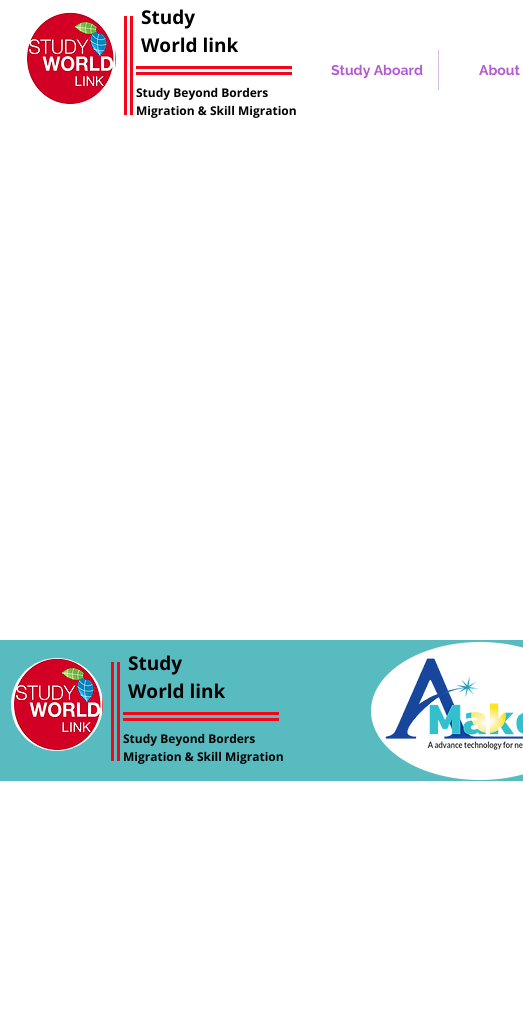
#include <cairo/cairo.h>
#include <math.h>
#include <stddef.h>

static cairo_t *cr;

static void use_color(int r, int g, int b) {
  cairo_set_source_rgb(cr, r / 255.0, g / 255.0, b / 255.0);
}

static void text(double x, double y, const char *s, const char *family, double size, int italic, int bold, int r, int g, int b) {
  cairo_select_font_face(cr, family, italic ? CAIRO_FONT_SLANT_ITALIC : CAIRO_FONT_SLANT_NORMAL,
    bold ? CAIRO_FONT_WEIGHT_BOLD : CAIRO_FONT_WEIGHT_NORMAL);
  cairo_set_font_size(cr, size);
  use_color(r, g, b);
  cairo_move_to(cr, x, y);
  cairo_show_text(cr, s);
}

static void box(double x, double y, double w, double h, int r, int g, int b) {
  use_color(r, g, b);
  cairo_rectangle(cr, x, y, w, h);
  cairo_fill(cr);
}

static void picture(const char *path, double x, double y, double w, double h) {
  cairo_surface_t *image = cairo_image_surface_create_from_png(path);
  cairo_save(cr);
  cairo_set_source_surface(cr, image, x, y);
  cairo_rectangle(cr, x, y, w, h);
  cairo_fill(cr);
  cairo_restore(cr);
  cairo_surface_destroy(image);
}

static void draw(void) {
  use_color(255, 255, 255);
  cairo_paint(cr);
  picture("img_01.png", 27, 12, 89, 92);
  box(130, 16, 3, 99, 246, 4, 25);
  box(124, 16, 3, 99, 246, 4, 25);
  box(136, 66, 156, 3, 246, 4, 25);
  box(136, 72, 156, 3, 246, 4, 25);
  box(438, 50, 1, 40, 216, 189, 226);
  box(0, 640, 523, 141, 87, 187, 191);
  picture("img_02.png", 11, 658, 92, 93);
  box(117, 662, 3, 99, 246, 4, 25);
  box(111, 662, 3, 99, 246, 4, 25);
  box(123, 712, 156, 3, 246, 4, 25);
  box(123, 718, 156, 3, 246, 4, 25);
  use_color(255, 255, 255);
  cairo_new_path(cr);
  cairo_move_to(cr, 480, 642);
  cairo_curve_to(cr, 540, 642, 589, 673, 589, 711);
  cairo_curve_to(cr, 589, 749, 540, 780, 480, 780);
  cairo_curve_to(cr, 420, 780, 371, 749, 371, 711);
  cairo_curve_to(cr, 371, 673, 420, 642, 480, 642);
  cairo_close_path(cr);
  cairo_fill(cr);
  picture("img_03.png", 385, 658, 138, 92);
  text(141, 24, "Study", "Open Sans", 19, 0, 1, 0, 0, 0);
  text(141, 52, "World link", "Open Sans", 19, 0, 1, 0, 0, 0);
  text(136, 97, "Study Beyond Borders", "Open Sans", 12, 0, 1, 0, 0, 0);
  text(136, 115, "Migration & Skill Migration", "Open Sans", 12, 0, 1, 0, 0, 0);
  text(331, 75, "Study Aboard", "Raleway", 14, 0, 1, 180, 90, 211);
  text(479, 75, "About", "Raleway", 14, 0, 1, 180, 90, 211);
  text(128, 670, "Study", "Open Sans", 19, 0, 1, 0, 0, 0);
  text(128, 698, "World link", "Open Sans", 19, 0, 1, 0, 0, 0);
  text(123, 743, "Study Beyond Borders", "Open Sans", 12, 0, 1, 0, 0, 0);
  text(123, 761, "Migration & Skill Migration", "Open Sans", 12, 0, 1, 0, 0, 0);
}

int main(void) {
  cairo_surface_t *surface = cairo_image_surface_create(CAIRO_FORMAT_RGB24, 523, 1027);
  cr = cairo_create(surface);
  cairo_font_options_t *options = cairo_font_options_create();
  cairo_font_options_set_hint_metrics(options, CAIRO_HINT_METRICS_OFF);
  cairo_font_options_set_hint_style(options, CAIRO_HINT_STYLE_NONE);
  cairo_set_font_options(cr, options);
  cairo_set_miter_limit(cr, 4);
  draw();
  cairo_surface_write_to_png(surface, "out.png");
  cairo_font_options_destroy(options);
  cairo_destroy(cr);
  cairo_surface_destroy(surface);
  return 0;
}
